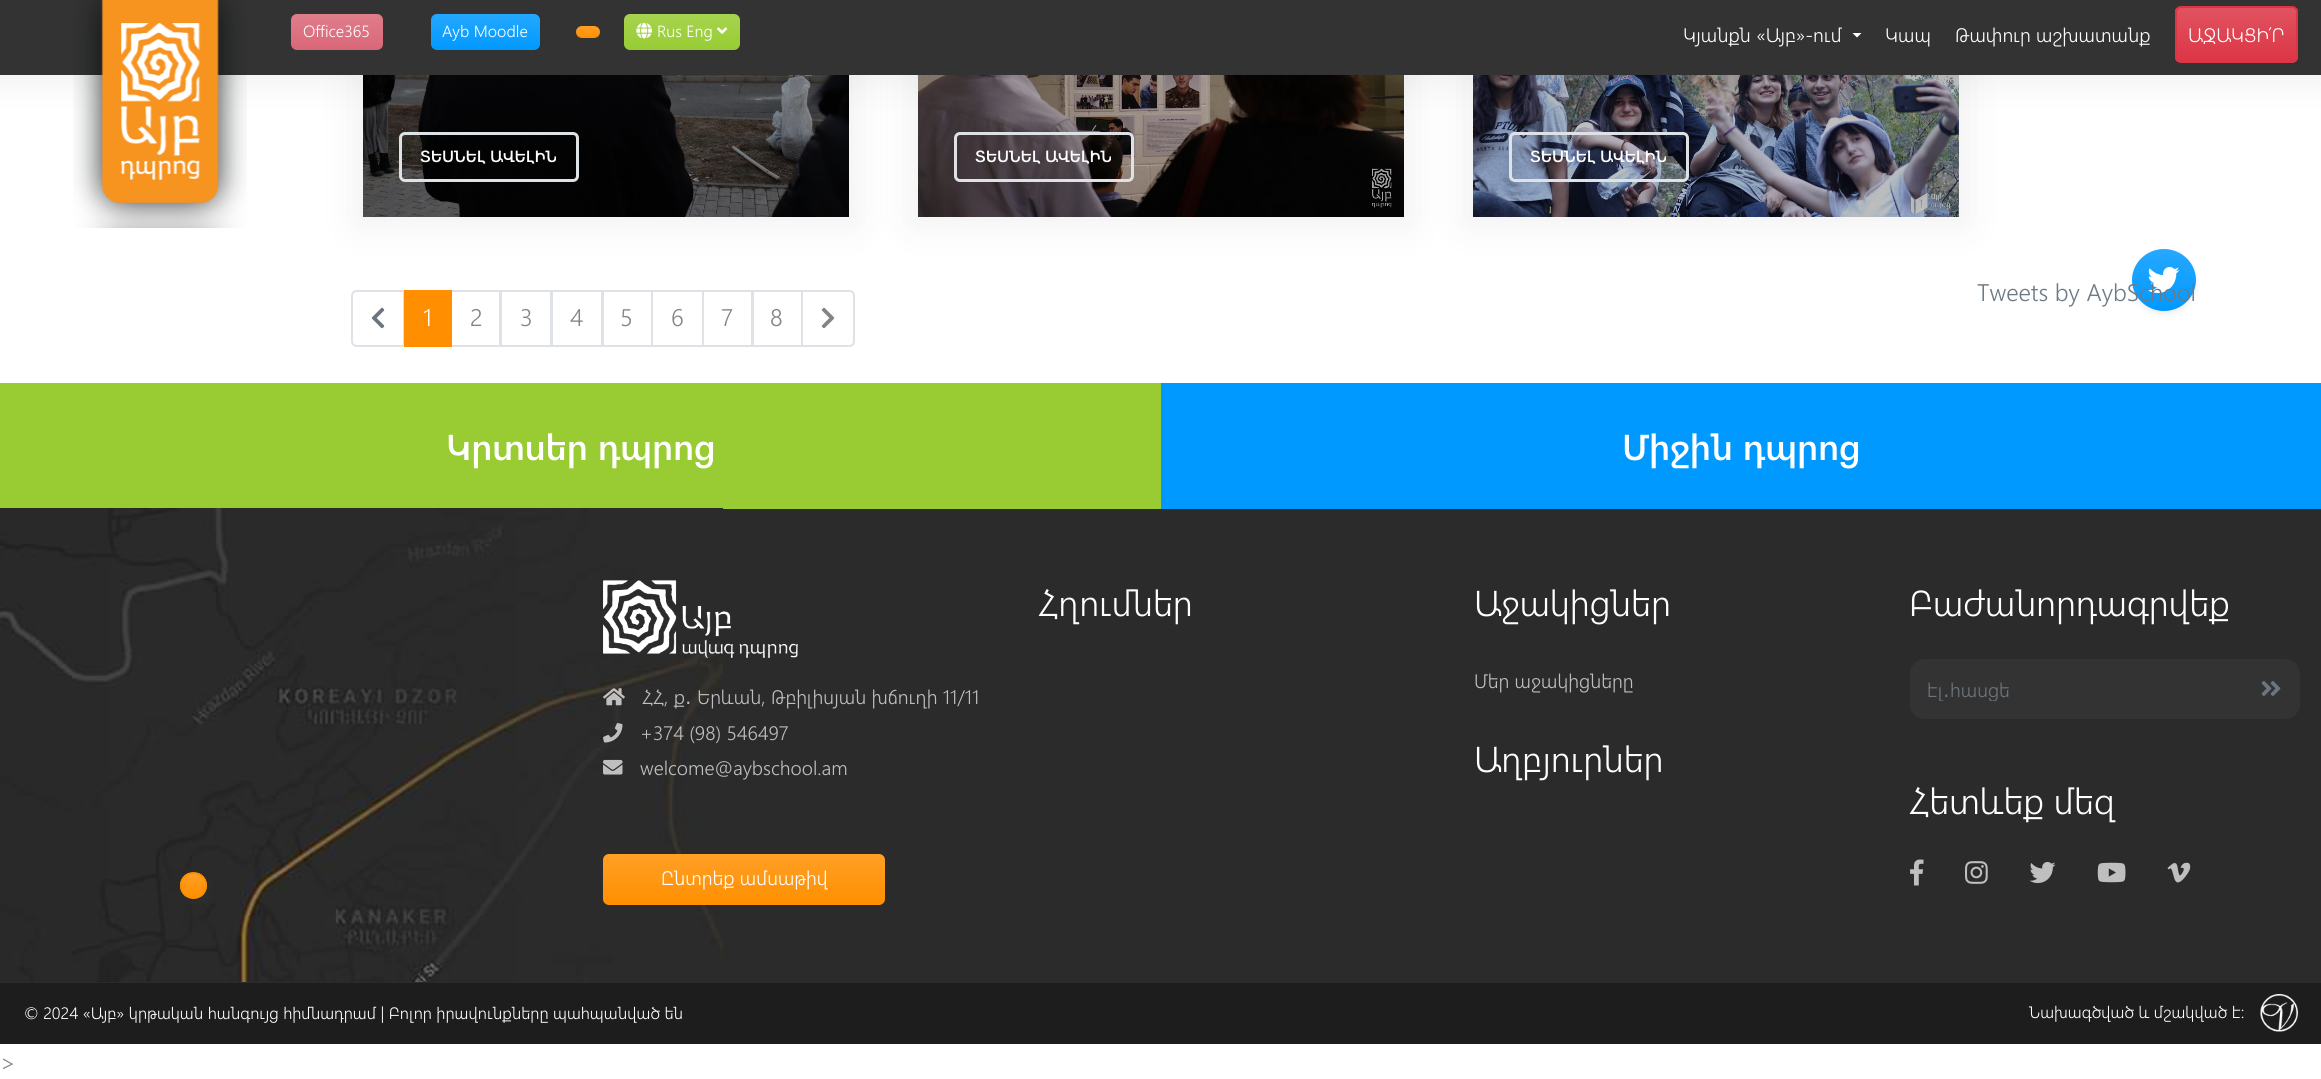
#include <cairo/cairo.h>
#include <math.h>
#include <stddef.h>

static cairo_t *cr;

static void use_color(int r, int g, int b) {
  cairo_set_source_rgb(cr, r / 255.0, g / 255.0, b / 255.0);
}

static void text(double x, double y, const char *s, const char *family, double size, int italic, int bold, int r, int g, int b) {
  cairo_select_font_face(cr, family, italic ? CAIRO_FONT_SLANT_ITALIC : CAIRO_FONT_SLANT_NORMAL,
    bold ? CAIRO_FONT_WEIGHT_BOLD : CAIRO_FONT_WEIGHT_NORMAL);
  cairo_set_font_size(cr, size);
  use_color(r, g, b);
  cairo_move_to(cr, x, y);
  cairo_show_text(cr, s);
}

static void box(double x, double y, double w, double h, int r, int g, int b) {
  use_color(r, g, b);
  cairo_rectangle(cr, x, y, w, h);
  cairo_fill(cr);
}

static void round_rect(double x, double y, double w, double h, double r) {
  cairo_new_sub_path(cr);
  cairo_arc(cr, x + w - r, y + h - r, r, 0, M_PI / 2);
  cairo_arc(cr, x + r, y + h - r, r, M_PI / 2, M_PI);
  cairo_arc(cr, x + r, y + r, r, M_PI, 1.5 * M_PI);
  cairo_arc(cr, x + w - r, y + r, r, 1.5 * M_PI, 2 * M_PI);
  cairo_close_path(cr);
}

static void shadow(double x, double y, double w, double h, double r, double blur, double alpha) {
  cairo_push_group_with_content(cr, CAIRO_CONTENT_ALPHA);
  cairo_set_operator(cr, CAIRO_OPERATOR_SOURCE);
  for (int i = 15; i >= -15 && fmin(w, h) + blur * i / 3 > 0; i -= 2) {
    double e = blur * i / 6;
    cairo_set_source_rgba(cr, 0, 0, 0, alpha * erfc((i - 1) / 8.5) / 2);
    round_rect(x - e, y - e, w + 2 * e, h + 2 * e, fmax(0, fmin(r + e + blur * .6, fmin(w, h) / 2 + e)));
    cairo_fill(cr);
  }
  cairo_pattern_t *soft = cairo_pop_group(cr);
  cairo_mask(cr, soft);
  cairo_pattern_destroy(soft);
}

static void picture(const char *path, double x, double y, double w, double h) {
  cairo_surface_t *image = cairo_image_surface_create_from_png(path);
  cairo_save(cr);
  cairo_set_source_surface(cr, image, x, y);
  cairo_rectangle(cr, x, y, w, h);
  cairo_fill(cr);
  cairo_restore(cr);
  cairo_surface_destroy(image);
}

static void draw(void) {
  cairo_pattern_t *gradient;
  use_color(255, 255, 255);
  cairo_paint(cr);
  use_color(0, 0, 0);
  shadow(356, -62, 501, 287, 0, 20.5, 0.06);
  picture("img_04.png", 363, 75, 486, 142);
  round_rect(400.5, 133.5, 177, 47, 4.5);
  use_color(222, 226, 230);
  cairo_set_line_width(cr, 3);
  cairo_stroke(cr);
  use_color(0, 0, 0);
  shadow(911, -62, 501, 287, 0, 20.5, 0.06);
  picture("img_05.png", 918, 75, 486, 142);
  round_rect(955.5, 133.5, 177, 47, 4.5);
  use_color(222, 226, 230);
  cairo_stroke(cr);
  use_color(0, 0, 0);
  shadow(1466, -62, 501, 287, 0, 20.5, 0.06);
  picture("img_06.png", 1473, 75, 486, 142);
  round_rect(1510.5, 133.5, 177, 47, 4.5);
  use_color(222, 226, 230);
  cairo_stroke(cr);
  use_color(0, 0, 0);
  shadow(-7, -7, 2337, 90, 0, 20.5, 0.06);
  box(0, 0, 2321, 75, 51, 51, 51);
  picture("img_01.png", 73, 0, 174, 228);
  gradient = cairo_pattern_create_linear(337, 13, 337, 50);
  cairo_pattern_add_color_stop_rgba(gradient, 0, 0.875, 0.494, 0.549, 1);
  cairo_pattern_add_color_stop_rgba(gradient, 1, 0.851, 0.404, 0.471, 1);
  cairo_set_source(cr, gradient);
  cairo_pattern_destroy(gradient);
  round_rect(291, 14, 92, 36, 6);
  cairo_fill(cr);
  gradient = cairo_pattern_create_linear(485, 13, 485, 50);
  cairo_pattern_add_color_stop_rgba(gradient, 0, 0.149, 0.659, 1, 1);
  cairo_pattern_add_color_stop_rgba(gradient, 1, 0, 0.6, 1, 1);
  cairo_set_source(cr, gradient);
  cairo_pattern_destroy(gradient);
  round_rect(431, 14, 109, 36, 6);
  cairo_fill(cr);
  gradient = cairo_pattern_create_linear(588, 26, 588, 38);
  cairo_pattern_add_color_stop_rgba(gradient, 0, 1, 0.627, 0.149, 1);
  cairo_pattern_add_color_stop_rgba(gradient, 1, 1, 0.561, 0, 1);
  cairo_set_source(cr, gradient);
  cairo_pattern_destroy(gradient);
  round_rect(576, 26, 24, 12, 6);
  cairo_fill(cr);
  gradient = cairo_pattern_create_linear(682, 13, 682, 50);
  cairo_pattern_add_color_stop_rgba(gradient, 0, 0.655, 0.831, 0.318, 1);
  cairo_pattern_add_color_stop_rgba(gradient, 1, 0.596, 0.8, 0.196, 1);
  cairo_set_source(cr, gradient);
  cairo_pattern_destroy(gradient);
  round_rect(624, 14, 116, 36, 6);
  cairo_fill(cr);
  picture("img_02.png", 636, 22, 17, 17);
  picture("img_03.png", 717, 27, 11, 7);
  use_color(255, 255, 255);
  cairo_new_path(cr);
  cairo_move_to(cr, 1852.5, 33);
  cairo_line_to(cr, 1861.5, 33);
  cairo_line_to(cr, 1857, 37.5);
  cairo_close_path(cr);
  cairo_fill(cr);
  cairo_save(cr);
  round_rect(2175, 6, 123, 57, 6);
  cairo_clip(cr);
  gradient = cairo_pattern_create_linear(2237, 7.5, 2237, 62);
  cairo_pattern_add_color_stop_rgba(gradient, 0, 0.882, 0.325, 0.38, 1);
  cairo_pattern_add_color_stop_rgba(gradient, 1, 0.863, 0.208, 0.271, 1);
  cairo_set_source(cr, gradient);
  cairo_pattern_destroy(gradient);
  cairo_rectangle(cr, 2175, 8, 123, 54);
  cairo_fill(cr);
  cairo_restore(cr);
  round_rect(2176, 7, 121, 55, 5);
  use_color(220, 53, 69);
  cairo_set_line_width(cr, 2);
  cairo_stroke(cr);
  cairo_new_path(cr);
  cairo_move_to(cr, 357, 291);
  cairo_line_to(cr, 404, 291);
  cairo_line_to(cr, 404, 346);
  cairo_line_to(cr, 357, 346);
  cairo_curve_to(cr, 354, 346, 352, 344, 352, 341);
  cairo_line_to(cr, 352, 296);
  cairo_curve_to(cr, 352, 293, 354, 291, 357, 291);
  cairo_close_path(cr);
  use_color(222, 226, 230);
  cairo_stroke(cr);
  picture("img_07.png", 371, 307, 14, 22);
  cairo_rectangle(cr, 451, 291, 49, 55);
  cairo_stroke(cr);
  box(404, 290, 48, 57, 255, 143, 0);
  cairo_rectangle(cr, 501, 291, 50, 55);
  use_color(222, 226, 230);
  cairo_stroke(cr);
  cairo_rectangle(cr, 552, 291, 50, 55);
  cairo_stroke(cr);
  cairo_rectangle(cr, 603, 291, 49, 55);
  cairo_stroke(cr);
  cairo_rectangle(cr, 652, 291, 51, 55);
  cairo_stroke(cr);
  cairo_rectangle(cr, 703, 291, 49, 55);
  cairo_stroke(cr);
  cairo_rectangle(cr, 753, 291, 49, 55);
  cairo_stroke(cr);
  use_color(255, 255, 255);
  cairo_new_path(cr);
  cairo_move_to(cr, 802, 291);
  cairo_line_to(cr, 849, 291);
  cairo_curve_to(cr, 852, 291, 854, 293, 854, 296);
  cairo_line_to(cr, 854, 341);
  cairo_curve_to(cr, 854, 344, 852, 346, 849, 346);
  cairo_line_to(cr, 802, 346);
  cairo_close_path(cr);
  cairo_fill_preserve(cr);
  use_color(222, 226, 230);
  cairo_stroke(cr);
  picture("img_08.png", 821, 307, 14, 22);
  use_color(0, 0, 0);
  shadow(2132, 252, 64, 62, 31, 3, 0.07);
  gradient = cairo_pattern_create_linear(2164, 249, 2164, 311);
  cairo_pattern_add_color_stop_rgba(gradient, 0, 0.149, 0.659, 1, 1);
  cairo_pattern_add_color_stop_rgba(gradient, 1, 0, 0.6, 1, 1);
  cairo_set_source(cr, gradient);
  cairo_pattern_destroy(gradient);
  cairo_new_path(cr);
  cairo_move_to(cr, 2164, 249);
  cairo_curve_to(cr, 2181.5, 249, 2196, 263, 2196, 280);
  cairo_curve_to(cr, 2196, 297, 2181.5, 311, 2164, 311);
  cairo_curve_to(cr, 2146.5, 311, 2132, 297, 2132, 280);
  cairo_curve_to(cr, 2132, 263, 2146.5, 249, 2164, 249);
  cairo_close_path(cr);
  cairo_fill(cr);
  picture("img_09.png", 2147, 267, 33, 26);
  box(0, 509, 2321, 474, 43, 43, 43);
  box(0, 383, 1161, 126, 152, 204, 50);
  box(1161, 383, 1160, 126, 0, 153, 255);
  picture("img_10.png", 0, 508, 723, 474);
  cairo_save(cr);
  round_rect(180, 872, 27, 27, 13.5);
  cairo_clip(cr);
  gradient = cairo_pattern_create_linear(194, 873, 194, 897);
  cairo_pattern_add_color_stop_rgba(gradient, 0, 1, 0.627, 0.149, 1);
  cairo_pattern_add_color_stop_rgba(gradient, 1, 1, 0.561, 0, 1);
  cairo_set_source(cr, gradient);
  cairo_pattern_destroy(gradient);
  cairo_rectangle(cr, 180, 873, 27, 24);
  cairo_fill(cr);
  cairo_restore(cr);
  cairo_arc(cr, 193.5, 885.5, 12.5, 0, 2 * M_PI);
  use_color(255, 143, 0);
  cairo_stroke(cr);
  picture("img_11.png", 603, 580, 195, 78);
  picture("img_12.png", 603, 688, 22, 18);
  picture("img_13.png", 603, 723, 20, 20);
  picture("img_14.png", 603, 759, 20, 16);
  gradient = cairo_pattern_create_linear(744, 854, 744, 905);
  cairo_pattern_add_color_stop_rgba(gradient, 0, 1, 0.627, 0.149, 1);
  cairo_pattern_add_color_stop_rgba(gradient, 1, 1, 0.561, 0, 1);
  cairo_set_source(cr, gradient);
  cairo_pattern_destroy(gradient);
  round_rect(603, 854, 282, 51, 6);
  cairo_fill(cr);
  use_color(51, 51, 51);
  round_rect(1910, 659, 390, 60, 15);
  cairo_fill(cr);
  cairo_new_path(cr);
  cairo_move_to(cr, 1916, 665);
  cairo_line_to(cr, 2244, 665);
  cairo_line_to(cr, 2244, 713);
  cairo_line_to(cr, 1916, 713);
  cairo_curve_to(cr, 1912.5, 713, 1910, 710.5, 1910, 707);
  cairo_line_to(cr, 1910, 671);
  cairo_curve_to(cr, 1910, 667.5, 1912.5, 665, 1916, 665);
  cairo_close_path(cr);
  cairo_fill(cr);
  picture("img_15.png", 2261, 681, 20, 15);
  picture("img_16.png", 1910, 859, 14, 27);
  picture("img_17.png", 1965, 861, 23, 23);
  picture("img_18.png", 2029, 861, 27, 23);
  picture("img_19.png", 2097, 862, 29, 21);
  picture("img_20.png", 2167, 862, 24, 21);
  box(0, 983, 2321, 61, 29, 29, 29);
  picture("img_21.png", 2260, 994, 38, 38);
  text(303, 37, "Office365", "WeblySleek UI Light", 16.25, 0, 0, 255, 255, 255);
  text(442, 37, "Ayb Moodle", "WeblySleek UI Light", 16.25, 0, 0, 255, 255, 255);
  text(657, 37, "Rus Eng", "WeblySleek UI Light", 16.25, 0, 0, 255, 255, 255);
  text(1683, 42, "Կյանքն «Այբ»-ում", "WeblySleek UI Light", 19.5, 0, 0, 255, 255, 255);
  text(1885, 42, "Կապ", "WeblySleek UI Light", 19.5, 0, 0, 255, 255, 255);
  text(1955, 42, "Թափուր աշխատանք", "WeblySleek UI Light", 19.5, 0, 0, 255, 255, 255);
  text(2188, 42, "ԱՋԱԿՑԻ՛Ր", "WeblySleek UI Light", 19.5, 0, 0, 255, 255, 255);
  text(420, 162, "ՏԵՍՆԵԼ ԱՎԵԼԻՆ", "WeblySleek UI SemiBold", 16.25, 0, 0, 255, 255, 255);
  text(975, 162, "ՏԵՍՆԵԼ ԱՎԵԼԻՆ", "WeblySleek UI SemiBold", 16.25, 0, 0, 255, 255, 255);
  text(1530, 162, "ՏԵՍՆԵԼ ԱՎԵԼԻՆ", "WeblySleek UI SemiBold", 16.25, 0, 0, 255, 255, 255);
  text(423, 326, "1", "WeblySleek UI Light", 24, 0, 0, 255, 255, 255);
  text(470, 326, "2", "WeblySleek UI Light", 24, 0, 0, 132, 132, 132);
  text(520, 326, "3", "WeblySleek UI Light", 24, 0, 0, 132, 132, 132);
  text(570, 326, "4", "WeblySleek UI Light", 24, 0, 0, 132, 132, 132);
  text(620, 326, "5", "WeblySleek UI Light", 24, 0, 0, 132, 132, 132);
  text(671, 326, "6", "WeblySleek UI Light", 24, 0, 0, 132, 132, 132);
  text(721, 326, "7", "WeblySleek UI Light", 24, 0, 0, 132, 132, 132);
  text(770, 326, "8", "WeblySleek UI Light", 24, 0, 0, 132, 132, 132);
  text(1977, 301, "Tweets by AybSchool", "WeblySleek UI Light", 24, 0, 0, 107, 122, 132);
  text(446, 460, "Կրտսեր դպրոց", "WeblySleek UI SemiBold", 36, 0, 0, 255, 255, 255);
  text(1622, 460, "Միջին դպրոց", "WeblySleek UI SemiBold", 36, 0, 0, 255, 255, 255);
  text(642, 704, "ՀՀ, ք", "WeblySleek UI Light", 19.5, 0, 0, 191, 191, 191);
  text(685, 704, "․", "DejaVu Sans", 19.5, 0, 0, 191, 191, 191);
  text(697, 704, "Երևան, Թբիլիսյան խճուղի 11/11", "WeblySleek UI Light", 19.5, 0, 0, 191, 191, 191);
  text(640, 740, "+374 (98) 546497", "WeblySleek UI Light", 19.5, 0, 0, 191, 191, 191);
  text(640, 775, "welcome@aybschool.am", "WeblySleek UI Light", 19.5, 0, 0, 191, 191, 191);
  text(661, 885, "Ընտրեք ամսաթիվ", "WeblySleek UI Light", 19.5, 0, 0, 255, 255, 255);
  text(1038, 616, "Հղումներ", "WeblySleek UI Light", 36, 0, 0, 255, 255, 255);
  text(1474, 616, "Աջակիցներ", "WeblySleek UI Light", 36, 0, 0, 255, 255, 255);
  text(1474, 688, "Մեր աջակիցները", "WeblySleek UI Light", 19.5, 0, 0, 191, 191, 191);
  text(1474, 772, "Աղբյուրներ", "WeblySleek UI Light", 36, 0, 0, 255, 255, 255);
  text(1909, 616, "Բաժանորդագրվեք", "WeblySleek UI Light", 36, 0, 0, 255, 255, 255);
  cairo_save(cr);
  cairo_rectangle(cr, 1928, 675, 298, 26);
  cairo_clip(cr);
  text(1927, 697, "էլ", "WeblySleek UI Light", 19.5, 0, 0, 108, 117, 125);
  cairo_restore(cr);
  text(1943, 697, "․", "DejaVu Sans", 19.5, 0, 0, 108, 117, 125);
  cairo_save(cr);
  cairo_rectangle(cr, 1928, 675, 298, 26);
  cairo_clip(cr);
  text(1950, 697, "հասցե", "WeblySleek UI Light", 19.5, 0, 0, 108, 117, 125);
  cairo_restore(cr);
  text(1909, 814, "Հետևեք մեզ", "WeblySleek UI Light", 36, 0, 0, 255, 255, 255);
  text(24, 1019, "© 2024 «Այբ» կրթական հանգույց հիմնադրամ | Բոլոր իրավունքները պահպանված են", "WeblySleek UI Light", 16.5, 0, 0, 255, 255, 255);
  text(2029, 1018, "Նախագծված և մշակված է:", "WeblySleek UI Light", 16.5, 0, 0, 255, 255, 255);
  text(0, 1071, ">", "WeblySleek UI Light", 24, 0, 0, 132, 132, 132);
}

int main(void) {
  cairo_surface_t *surface = cairo_image_surface_create(CAIRO_FORMAT_RGB24, 2321, 1079);
  cr = cairo_create(surface);
  cairo_font_options_t *options = cairo_font_options_create();
  cairo_font_options_set_hint_metrics(options, CAIRO_HINT_METRICS_OFF);
  cairo_font_options_set_hint_style(options, CAIRO_HINT_STYLE_NONE);
  cairo_set_font_options(cr, options);
  cairo_set_miter_limit(cr, 4);
  draw();
  cairo_surface_write_to_png(surface, "out.png");
  cairo_font_options_destroy(options);
  cairo_destroy(cr);
  cairo_surface_destroy(surface);
  return 0;
}
